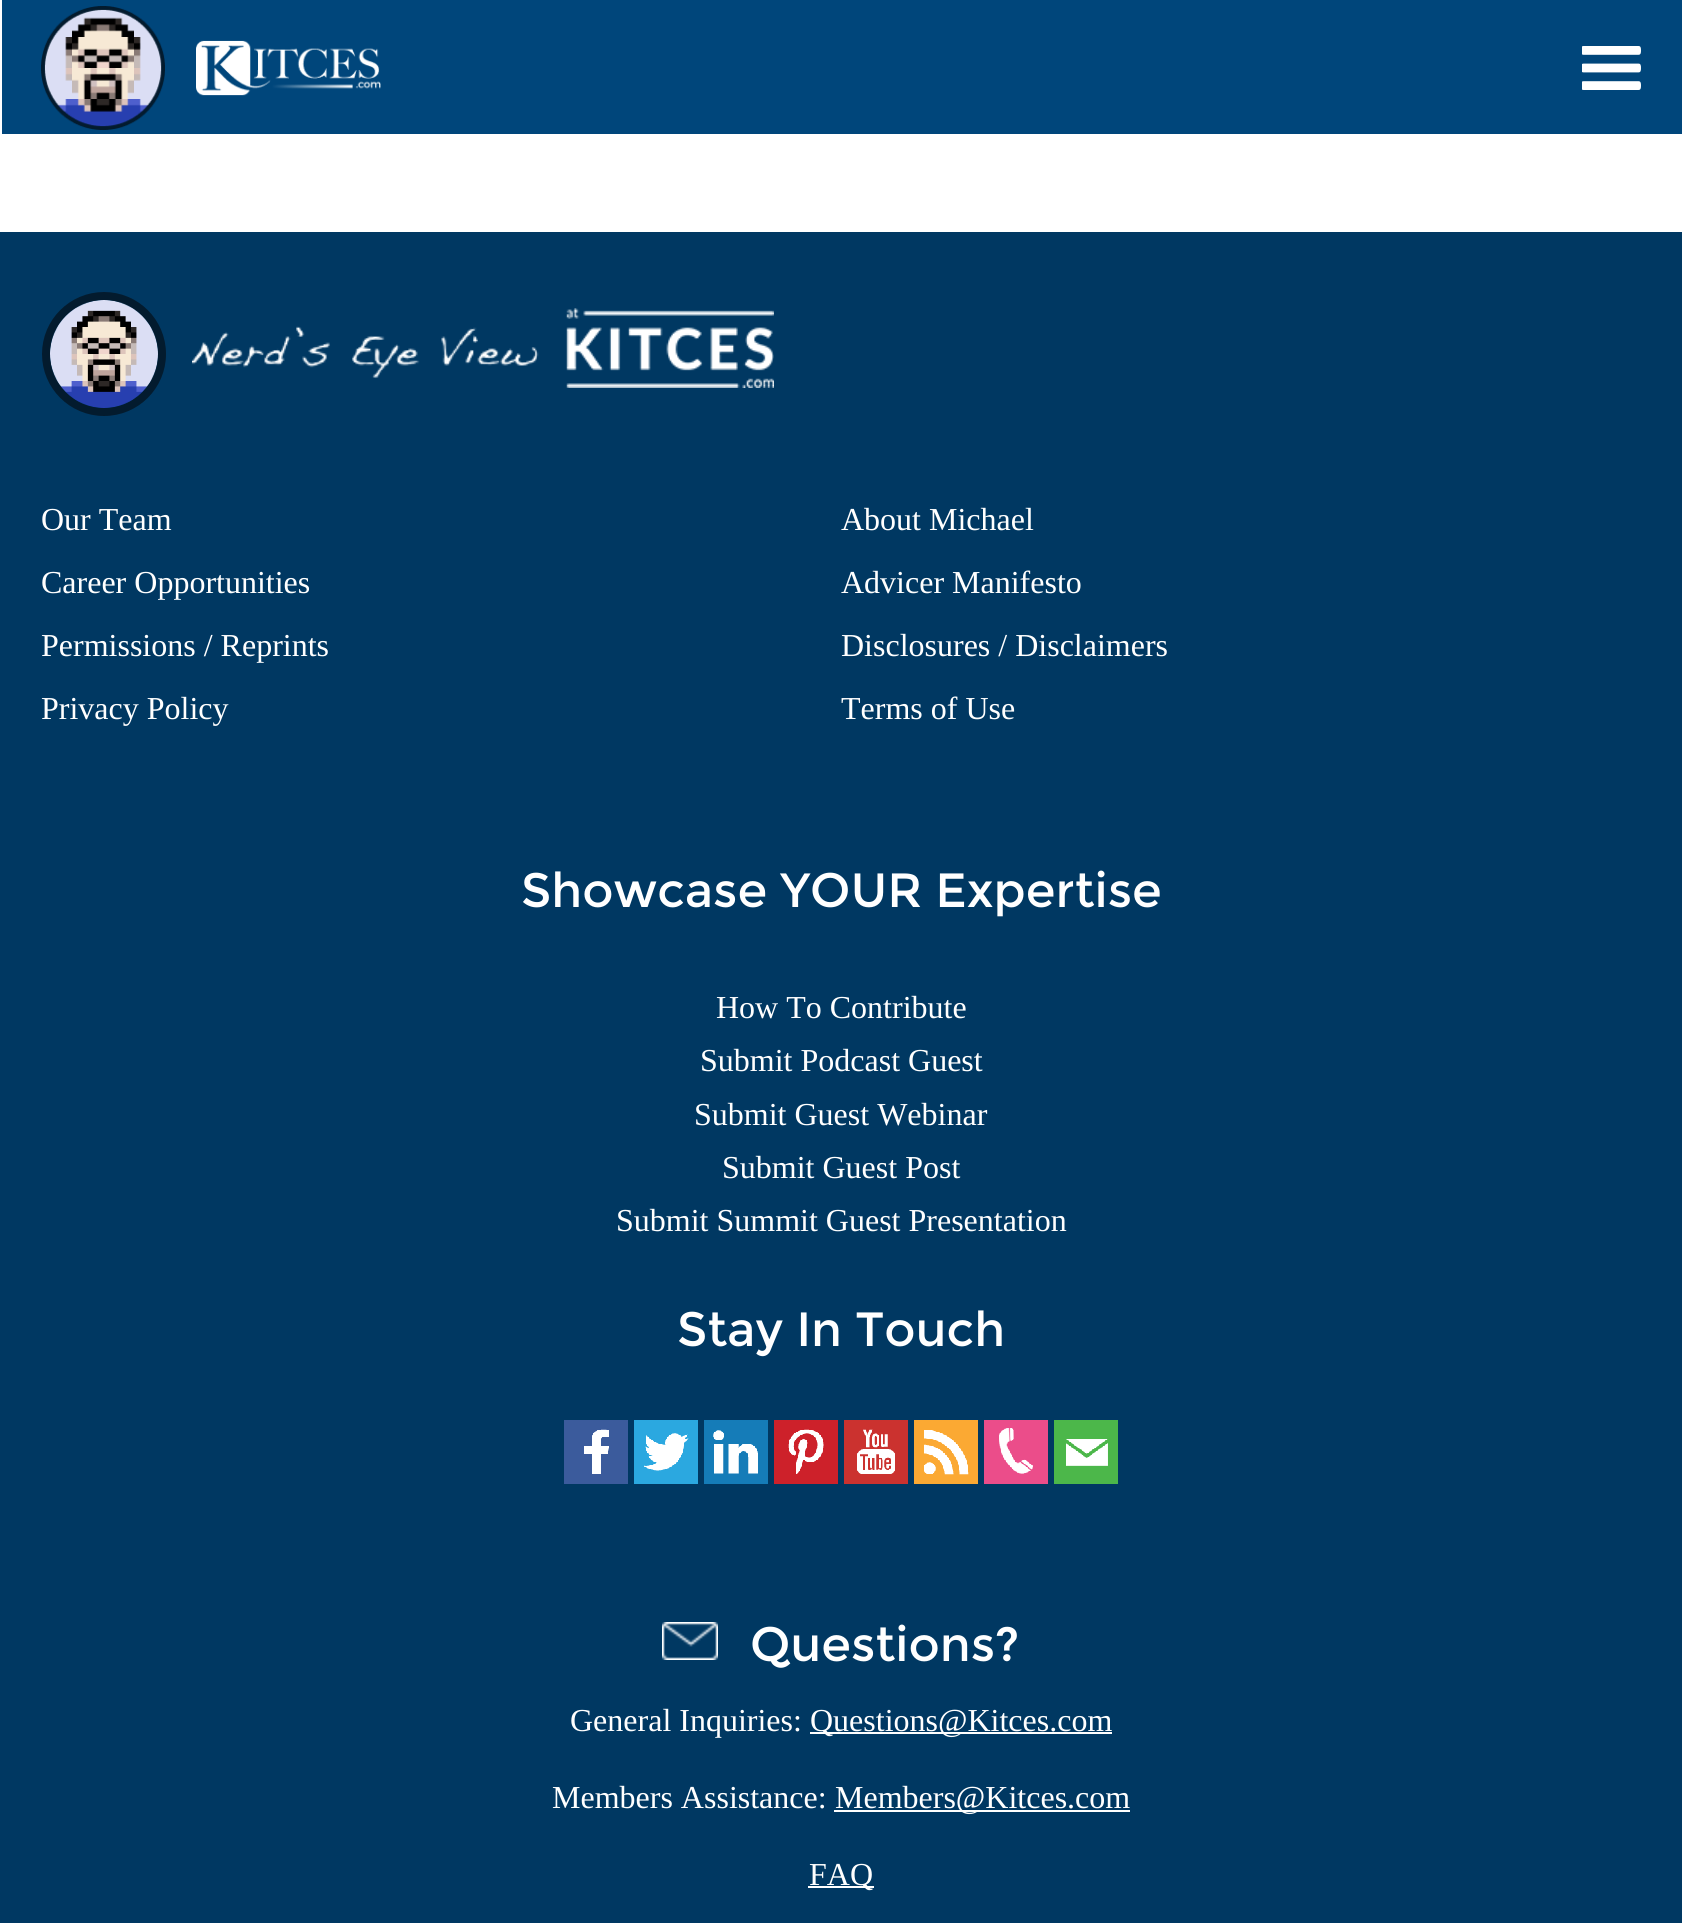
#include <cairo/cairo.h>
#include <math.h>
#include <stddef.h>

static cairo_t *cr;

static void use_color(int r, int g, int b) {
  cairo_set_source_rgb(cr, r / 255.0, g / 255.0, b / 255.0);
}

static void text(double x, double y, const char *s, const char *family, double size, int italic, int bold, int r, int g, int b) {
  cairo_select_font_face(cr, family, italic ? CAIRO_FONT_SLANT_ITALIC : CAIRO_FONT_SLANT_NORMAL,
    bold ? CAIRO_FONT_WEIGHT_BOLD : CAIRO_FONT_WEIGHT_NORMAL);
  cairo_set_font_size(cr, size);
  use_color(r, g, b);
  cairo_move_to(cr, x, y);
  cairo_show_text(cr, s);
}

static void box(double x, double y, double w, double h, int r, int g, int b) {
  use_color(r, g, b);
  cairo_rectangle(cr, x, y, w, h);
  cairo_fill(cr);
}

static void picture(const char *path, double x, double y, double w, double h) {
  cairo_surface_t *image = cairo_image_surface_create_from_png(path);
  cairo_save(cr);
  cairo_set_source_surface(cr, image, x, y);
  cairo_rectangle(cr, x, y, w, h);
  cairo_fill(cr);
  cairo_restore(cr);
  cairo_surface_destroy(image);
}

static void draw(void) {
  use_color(255, 255, 255);
  cairo_paint(cr);
  box(2, 0, 1680, 134, 0, 70, 123);
  picture("img_01.png", 41, 6, 340, 124);
  picture("img_02.png", 1582, 46, 59, 44);
  box(0, 232, 1682, 1691, 0, 56, 98);
  cairo_arc(cr, 104, 354, 58, 0, 2 * M_PI);
  use_color(3, 27, 46);
  cairo_set_line_width(cr, 8);
  cairo_stroke(cr);
  picture("img_03.png", 50, 300, 108, 108);
  picture("img_04.png", 192, 308, 582, 80);
  picture("img_05.png", 564, 1420, 64, 64);
  picture("img_06.png", 634, 1420, 64, 64);
  picture("img_07.png", 704, 1420, 64, 64);
  picture("img_08.png", 774, 1420, 64, 64);
  picture("img_09.png", 844, 1420, 64, 64);
  picture("img_10.png", 914, 1420, 64, 64);
  picture("img_11.png", 984, 1420, 64, 64);
  picture("img_12.png", 1054, 1420, 64, 64);
  picture("img_13.png", 662, 1622, 56, 38);
  box(810, 1732, 302, 2, 255, 255, 255);
  box(834, 1810, 296, 2, 255, 255, 255);
  box(808, 1886, 66, 2, 255, 255, 255);
  text(41, 530, "Our Team", "Liberation Serif", 32, 0, 0, 255, 255, 255);
  text(841, 530, "About Michael", "Liberation Serif", 32, 0, 0, 255, 255, 255);
  text(41, 593, "Career Opportunities", "Liberation Serif", 32, 0, 0, 255, 255, 255);
  text(841, 593, "Advicer Manifesto", "Liberation Serif", 32, 0, 0, 255, 255, 255);
  text(41, 656, "Permissions / Reprints", "Liberation Serif", 32, 0, 0, 255, 255, 255);
  text(841, 656, "Disclosures / Disclaimers", "Liberation Serif", 32, 0, 0, 255, 255, 255);
  text(41, 719, "Privacy Policy", "Liberation Serif", 32, 0, 0, 255, 255, 255);
  text(841, 719, "Terms of Use", "Liberation Serif", 32, 0, 0, 255, 255, 255);
  text(521, 907, "Showcase YOUR Expertise", "Montserrat", 48, 0, 0, 255, 255, 255);
  text(716, 1018, "How To Contribute", "Liberation Serif", 32, 0, 0, 255, 255, 255);
  text(700, 1071, "Submit Podcast Guest", "Liberation Serif", 32, 0, 0, 255, 255, 255);
  text(694, 1125, "Submit Guest Webinar", "Liberation Serif", 32, 0, 0, 255, 255, 255);
  text(722, 1178, "Submit Guest Post", "Liberation Serif", 32, 0, 0, 255, 255, 255);
  text(616, 1231, "Submit Summit Guest Presentation", "Liberation Serif", 32, 0, 0, 255, 255, 255);
  text(677, 1346, "Stay In Touch", "Montserrat", 48, 0, 0, 255, 255, 255);
  text(750, 1661, "Questions?", "Montserrat", 48, 0, 0, 255, 255, 255);
  text(570, 1731, "General Inquiries:", "Liberation Serif", 32, 0, 0, 255, 255, 255);
  text(810, 1731, "Questions@Kitces.com", "Liberation Serif", 32, 0, 0, 255, 255, 255);
  text(552, 1808, "Members Assistance:", "Liberation Serif", 32, 0, 0, 255, 255, 255);
  text(835, 1808, "Members@Kitces.com", "Liberation Serif", 32, 0, 0, 255, 255, 255);
  text(809, 1885, "FAQ", "Liberation Serif", 32, 0, 0, 255, 255, 255);
}

int main(void) {
  cairo_surface_t *surface = cairo_image_surface_create(CAIRO_FORMAT_RGB24, 1682, 1923);
  cr = cairo_create(surface);
  cairo_font_options_t *options = cairo_font_options_create();
  cairo_font_options_set_hint_metrics(options, CAIRO_HINT_METRICS_OFF);
  cairo_font_options_set_hint_style(options, CAIRO_HINT_STYLE_NONE);
  cairo_set_font_options(cr, options);
  cairo_set_miter_limit(cr, 4);
  draw();
  cairo_surface_write_to_png(surface, "out.png");
  cairo_font_options_destroy(options);
  cairo_destroy(cr);
  cairo_surface_destroy(surface);
  return 0;
}
